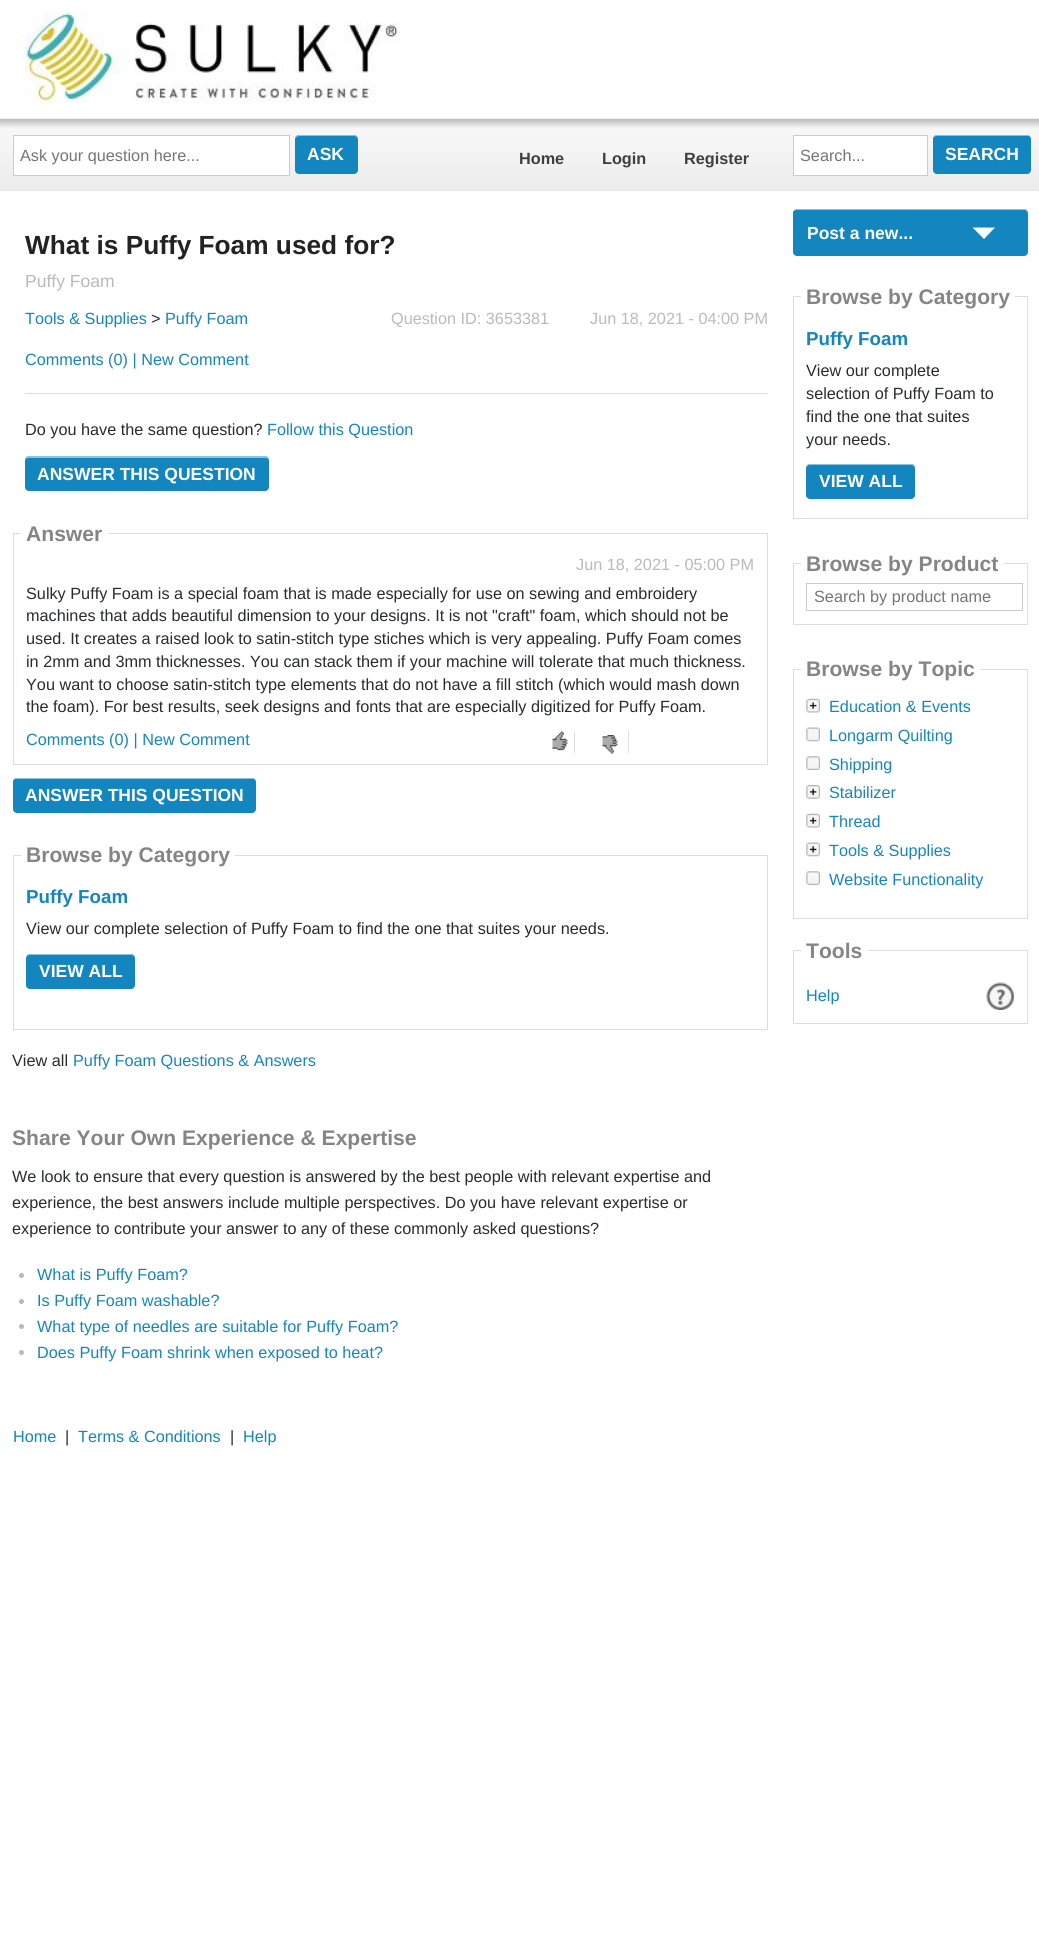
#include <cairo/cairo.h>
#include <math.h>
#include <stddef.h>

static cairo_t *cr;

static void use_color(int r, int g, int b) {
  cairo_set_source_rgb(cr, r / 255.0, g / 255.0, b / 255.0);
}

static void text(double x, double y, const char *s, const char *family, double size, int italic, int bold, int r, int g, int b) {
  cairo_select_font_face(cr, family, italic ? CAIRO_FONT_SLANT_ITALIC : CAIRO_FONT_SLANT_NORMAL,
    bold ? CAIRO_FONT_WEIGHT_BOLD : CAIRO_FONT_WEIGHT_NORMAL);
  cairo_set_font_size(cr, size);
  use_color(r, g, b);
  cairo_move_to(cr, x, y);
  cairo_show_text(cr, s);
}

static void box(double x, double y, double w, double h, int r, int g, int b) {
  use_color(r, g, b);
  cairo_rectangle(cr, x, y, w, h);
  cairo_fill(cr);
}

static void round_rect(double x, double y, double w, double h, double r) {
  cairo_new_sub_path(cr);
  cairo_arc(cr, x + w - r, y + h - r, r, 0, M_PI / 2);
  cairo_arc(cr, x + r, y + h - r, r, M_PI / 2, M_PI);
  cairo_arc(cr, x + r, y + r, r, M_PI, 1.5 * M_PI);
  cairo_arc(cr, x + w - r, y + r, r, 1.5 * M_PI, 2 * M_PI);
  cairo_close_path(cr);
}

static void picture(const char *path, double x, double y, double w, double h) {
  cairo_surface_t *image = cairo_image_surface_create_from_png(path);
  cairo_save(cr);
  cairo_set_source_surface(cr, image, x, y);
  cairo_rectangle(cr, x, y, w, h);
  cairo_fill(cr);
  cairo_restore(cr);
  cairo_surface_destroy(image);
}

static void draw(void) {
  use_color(255, 255, 255);
  cairo_paint(cr);
  picture("img_01.png", 25, 12, 375, 91);
  picture("img_02.png", 0, 118, 1039, 74);
  box(0, 190, 1039, 1, 230, 230, 230);
  use_color(255, 255, 255);
  cairo_rectangle(cr, 13.5, 135.5, 276, 40);
  cairo_fill_preserve(cr);
  use_color(204, 204, 204);
  cairo_set_line_width(cr, 1);
  cairo_stroke(cr);
  use_color(19, 134, 191);
  round_rect(295, 135, 63, 39, 4);
  cairo_fill(cr);
  cairo_set_source_rgba(cr, 1, 1, 1, 0.5);
  cairo_new_path(cr);
  cairo_move_to(cr, 299, 136);
  cairo_line_to(cr, 354, 136);
  cairo_curve_to(cr, 356, 136, 358, 138, 358, 140);
  cairo_curve_to(cr, 358, 133, 350, 135, 345, 135);
  cairo_line_to(cr, 308, 135);
  cairo_curve_to(cr, 303, 135, 295, 133, 295, 140);
  cairo_curve_to(cr, 295, 138, 297, 136, 299, 136);
  cairo_close_path(cr);
  cairo_fill(cr);
  use_color(255, 255, 255);
  cairo_rectangle(cr, 793.5, 135.5, 134, 40);
  cairo_fill_preserve(cr);
  use_color(204, 204, 204);
  cairo_stroke(cr);
  use_color(19, 134, 191);
  round_rect(933, 135, 98, 39, 4);
  cairo_fill(cr);
  cairo_set_source_rgba(cr, 1, 1, 1, 0.5);
  cairo_new_path(cr);
  cairo_move_to(cr, 936, 136);
  cairo_line_to(cr, 1028, 136);
  cairo_curve_to(cr, 1030, 136, 1031, 138, 1031, 140);
  cairo_line_to(cr, 1031, 139);
  cairo_curve_to(cr, 1031, 137, 1029, 135, 1027, 135);
  cairo_line_to(cr, 937, 135);
  cairo_curve_to(cr, 936, 135, 934, 136, 934, 137);
  cairo_close_path(cr);
  cairo_fill(cr);
  box(25, 393, 743, 1, 221, 221, 221);
  use_color(19, 134, 191);
  round_rect(25, 456, 244, 35, 4);
  cairo_fill(cr);
  cairo_set_source_rgba(cr, 1, 1, 1, 0.5);
  cairo_new_path(cr);
  cairo_move_to(cr, 29, 458);
  cairo_line_to(cr, 265, 458);
  cairo_curve_to(cr, 267, 458, 269, 459, 269, 461);
  cairo_line_to(cr, 269, 460);
  cairo_curve_to(cr, 269, 458, 267, 456, 265, 456);
  cairo_line_to(cr, 29, 456);
  cairo_curve_to(cr, 27, 456, 25, 458, 25, 460);
  cairo_line_to(cr, 25, 461);
  cairo_curve_to(cr, 25, 459, 27, 458, 29, 458);
  cairo_close_path(cr);
  cairo_fill(cr);
  cairo_rectangle(cr, 13.5, 533.5, 754, 231);
  use_color(221, 221, 221);
  cairo_stroke(cr);
  box(21, 533, 87, 1, 255, 255, 255);
  box(574, 731, 1, 22, 222, 222, 222);
  picture("img_03.png", 552, 731, 16, 20);
  box(628, 731, 1, 22, 222, 222, 222);
  picture("img_04.png", 602, 735, 16, 19);
  use_color(19, 134, 191);
  round_rect(13, 778, 243, 35, 4);
  cairo_fill(cr);
  cairo_set_source_rgba(cr, 1, 1, 1, 0.5);
  cairo_new_path(cr);
  cairo_move_to(cr, 16, 779);
  cairo_line_to(cr, 252, 779);
  cairo_curve_to(cr, 254, 779, 255, 779, 256, 780);
  cairo_curve_to(cr, 255, 779, 254, 778, 252, 778);
  cairo_line_to(cr, 17, 778);
  cairo_curve_to(cr, 16, 778, 15, 779, 14, 779);
  cairo_close_path(cr);
  cairo_fill(cr);
  cairo_rectangle(cr, 13.5, 855.5, 754, 174);
  use_color(221, 221, 221);
  cairo_stroke(cr);
  box(21, 855, 214, 1, 255, 255, 255);
  use_color(19, 134, 191);
  round_rect(26, 954, 109, 35, 4);
  cairo_fill(cr);
  cairo_set_source_rgba(cr, 1, 1, 1, 0.5);
  cairo_new_path(cr);
  cairo_move_to(cr, 30, 955);
  cairo_line_to(cr, 131, 955);
  cairo_curve_to(cr, 133, 955, 135, 957, 135, 959);
  cairo_curve_to(cr, 135, 950, 118, 954, 114, 954);
  cairo_line_to(cr, 47, 954);
  cairo_curve_to(cr, 43, 954, 26, 950, 26, 959);
  cairo_curve_to(cr, 26, 957, 28, 955, 30, 955);
  cairo_close_path(cr);
  cairo_fill(cr);
  use_color(186, 186, 186);
  cairo_arc(cr, 21.5, 1275.5, 2.5, 0, 2 * M_PI);
  cairo_fill(cr);
  cairo_arc(cr, 21.5, 1301.5, 2.5, 0, 2 * M_PI);
  cairo_fill(cr);
  cairo_arc(cr, 21.5, 1326.5, 2.5, 0, 2 * M_PI);
  cairo_fill(cr);
  cairo_arc(cr, 21.5, 1352.5, 2.5, 0, 2 * M_PI);
  cairo_fill(cr);
  use_color(19, 134, 191);
  round_rect(793, 209, 235, 47, 4);
  cairo_fill(cr);
  cairo_set_source_rgba(cr, 1, 1, 1, 0.5);
  cairo_new_path(cr);
  cairo_move_to(cr, 796, 210);
  cairo_line_to(cr, 1024, 210);
  cairo_curve_to(cr, 1026, 210, 1028, 212, 1028, 214);
  cairo_line_to(cr, 1028, 213);
  cairo_curve_to(cr, 1028, 211, 1026, 209, 1024, 209);
  cairo_line_to(cr, 797, 209);
  cairo_curve_to(cr, 796, 209, 794, 210, 794, 211);
  cairo_close_path(cr);
  cairo_fill(cr);
  use_color(255, 255, 255);
  cairo_new_path(cr);
  cairo_move_to(cr, 972.5, 227.5);
  cairo_line_to(cr, 995, 227.5);
  cairo_line_to(cr, 984, 239);
  cairo_close_path(cr);
  cairo_fill(cr);
  cairo_rectangle(cr, 793.5, 296.5, 234, 222);
  use_color(221, 221, 221);
  cairo_stroke(cr);
  box(801, 296, 214, 1, 255, 255, 255);
  use_color(19, 134, 191);
  round_rect(806, 464, 109, 35, 4);
  cairo_fill(cr);
  cairo_set_source_rgba(cr, 1, 1, 1, 0.5);
  cairo_new_path(cr);
  cairo_move_to(cr, 810, 465);
  cairo_line_to(cr, 911, 465);
  cairo_curve_to(cr, 913, 465, 915, 467, 915, 469);
  cairo_curve_to(cr, 915, 460, 898, 464, 894, 464);
  cairo_line_to(cr, 827, 464);
  cairo_curve_to(cr, 823, 464, 806, 460, 806, 469);
  cairo_curve_to(cr, 806, 467, 808, 465, 810, 465);
  cairo_close_path(cr);
  cairo_fill(cr);
  cairo_rectangle(cr, 793.5, 563.5, 234, 61);
  use_color(221, 221, 221);
  cairo_stroke(cr);
  box(801, 563, 203, 1, 255, 255, 255);
  cairo_rectangle(cr, 806.5, 583.5, 216, 27);
  use_color(204, 204, 204);
  cairo_stroke(cr);
  cairo_rectangle(cr, 793.5, 669.5, 234, 249);
  use_color(221, 221, 221);
  cairo_stroke(cr);
  box(801, 669, 179, 1, 255, 255, 255);
  picture("img_05.png", 806, 698, 14, 15);
  picture("img_06.png", 806, 727, 14, 15);
  picture("img_07.png", 806, 756, 14, 14);
  picture("img_08.png", 806, 785, 14, 14);
  picture("img_05.png", 806, 813, 14, 15);
  picture("img_09.png", 806, 842, 14, 15);
  picture("img_07.png", 806, 871, 14, 14);
  cairo_rectangle(cr, 793.5, 950.5, 234, 73);
  use_color(221, 221, 221);
  cairo_stroke(cr);
  box(801, 950, 67, 1, 255, 255, 255);
  picture("img_10.png", 986, 982, 28, 28);
  text(20, 161, "Ask your question here...", "Liberation Sans", 16.25, 0, 0, 117, 117, 117);
  text(307, 160, "ASK", "Liberation Sans", 17.5, 0, 1, 255, 255, 255);
  text(519, 164, "Home", "Liberation Sans", 16.25, 0, 1, 63, 63, 64);
  text(602, 164, "Login", "Liberation Sans", 16.25, 0, 1, 63, 63, 64);
  text(684, 164, "Register", "Liberation Sans", 16.25, 0, 1, 63, 63, 64);
  text(800, 161, "Search...", "Liberation Sans", 16.25, 0, 0, 117, 117, 117);
  text(945, 160, "SEARCH", "Liberation Sans", 17.5, 0, 1, 255, 255, 255);
  text(25, 254, "What is Puffy Foam used for?", "Liberation Sans", 26.25, 0, 1, 34, 34, 34);
  text(25, 287, "Puffy Foam", "Liberation Sans", 17.5, 0, 0, 186, 186, 186);
  text(25, 324, "Tools & Supplies", "Liberation Sans", 16.25, 0, 0, 19, 134, 191);
  text(151, 324, ">", "Liberation Sans", 16.25, 0, 0, 40, 43, 48);
  text(165, 324, "Puffy Foam", "Liberation Sans", 16.25, 0, 0, 19, 134, 191);
  text(391, 324, "Question ID: 3653381", "Liberation Sans", 16.25, 0, 0, 186, 186, 186);
  text(590, 324, "Jun 18, 2021 - 04:00 PM", "Liberation Sans", 16.25, 0, 0, 186, 186, 186);
  text(25, 365, "Comments (0) | New Comment", "Liberation Sans", 16.25, 0, 0, 19, 134, 191);
  text(25, 435, "Do you have the same question?", "Liberation Sans", 16.25, 0, 0, 40, 43, 48);
  text(267, 435, "Follow this Question", "Liberation Sans", 16.25, 0, 0, 19, 134, 191);
  text(37, 480, "ANSWER THIS QUESTION", "Liberation Sans", 17.5, 0, 1, 255, 255, 255);
  text(26, 541, "Answer", "Liberation Sans", 21.1, 0, 1, 133, 133, 133);
  text(576, 570, "Jun 18, 2021 - 05:00 PM", "Liberation Sans", 16.25, 0, 0, 186, 186, 186);
  text(26, 599, "Sulky Puffy Foam is a special foam that is made especially for use on sewing and embroidery", "Liberation Sans", 16.25, 0, 0, 40, 43, 48);
  text(26, 621, "machines that adds beautiful dimension to your designs. It is not \"craft\" foam, which should not be", "Liberation Sans", 16.25, 0, 0, 40, 43, 48);
  text(26, 644, "used. It creates a raised look to satin-stitch type stiches which is very appealing. Puffy Foam comes", "Liberation Sans", 16.25, 0, 0, 40, 43, 48);
  text(26, 667, "in 2mm and 3mm thicknesses. You can stack them if your machine will tolerate that much thickness.", "Liberation Sans", 16.25, 0, 0, 40, 43, 48);
  text(26, 690, "You want to choose satin-stitch type elements that do not have a fill stitch (which would mash down", "Liberation Sans", 16.25, 0, 0, 40, 43, 48);
  text(26, 712, "the foam). For best results, seek designs and fonts that are especially digitized for Puffy Foam.", "Liberation Sans", 16.25, 0, 0, 40, 43, 48);
  text(26, 745, "Comments (0) | New Comment", "Liberation Sans", 16.25, 0, 0, 19, 134, 191);
  text(25, 801, "ANSWER THIS QUESTION", "Liberation Sans", 17.5, 0, 1, 255, 255, 255);
  text(26, 862, "Browse by Category", "Liberation Sans", 21.1, 0, 1, 133, 133, 133);
  text(26, 903, "Puffy Foam", "Liberation Sans", 18.75, 0, 1, 19, 134, 191);
  text(26, 934, "View our complete selection of Puffy Foam to find the one that suites your needs.", "Liberation Sans", 16.25, 0, 0, 40, 43, 48);
  text(39, 977, "VIEW ALL", "Liberation Sans", 17.5, 0, 1, 255, 255, 255);
  text(12, 1066, "View all", "Liberation Sans", 16.25, 0, 0, 40, 43, 48);
  text(73, 1066, "Puffy Foam Questions & Answers", "Liberation Sans", 16.25, 0, 0, 19, 134, 191);
  text(12, 1145, "Share Your Own Experience & Expertise", "Liberation Sans", 21.1, 0, 1, 133, 133, 133);
  text(12, 1182, "We look to ensure that every question is answered by the best people with relevant expertise and", "Liberation Sans", 16.25, 0, 0, 40, 43, 48);
  text(12, 1208, "experience, the best answers include multiple perspectives. Do you have relevant expertise or", "Liberation Sans", 16.25, 0, 0, 40, 43, 48);
  text(12, 1234, "experience to contribute your answer to any of these commonly asked questions?", "Liberation Sans", 16.25, 0, 0, 40, 43, 48);
  text(37, 1280, "What is Puffy Foam?", "Liberation Sans", 16.25, 0, 0, 19, 134, 191);
  text(37, 1306, "Is Puffy Foam washable?", "Liberation Sans", 16.25, 0, 0, 19, 134, 191);
  text(37, 1332, "What type of needles are suitable for Puffy Foam?", "Liberation Sans", 16.25, 0, 0, 19, 134, 191);
  text(37, 1358, "Does Puffy Foam shrink when exposed to heat?", "Liberation Sans", 16.25, 0, 0, 19, 134, 191);
  text(807, 239, "Post a new...", "Liberation Sans", 17.5, 0, 1, 255, 255, 255);
  text(806, 304, "Browse by Category", "Liberation Sans", 21.1, 0, 1, 133, 133, 133);
  text(806, 345, "Puffy Foam", "Liberation Sans", 18.75, 0, 1, 19, 134, 191);
  text(806, 376, "View our complete", "Liberation Sans", 16.25, 0, 0, 40, 43, 48);
  text(806, 399, "selection of Puffy Foam to", "Liberation Sans", 16.25, 0, 0, 40, 43, 48);
  text(806, 422, "find the one that suites", "Liberation Sans", 16.25, 0, 0, 40, 43, 48);
  text(806, 445, "your needs.", "Liberation Sans", 16.25, 0, 0, 40, 43, 48);
  text(819, 487, "VIEW ALL", "Liberation Sans", 17.5, 0, 1, 255, 255, 255);
  text(806, 571, "Browse by Product", "Liberation Sans", 21.1, 0, 1, 133, 133, 133);
  text(814, 602, "Search by product name", "Liberation Sans", 16.25, 0, 0, 117, 117, 117);
  text(806, 676, "Browse by Topic", "Liberation Sans", 21.1, 0, 1, 133, 133, 133);
  text(829, 712, "Education & Events", "Liberation Sans", 16.25, 0, 0, 19, 134, 191);
  text(829, 741, "Longarm Quilting", "Liberation Sans", 16.25, 0, 0, 19, 134, 191);
  text(829, 770, "Shipping", "Liberation Sans", 16.25, 0, 0, 19, 134, 191);
  text(829, 798, "Stabilizer", "Liberation Sans", 16.25, 0, 0, 19, 134, 191);
  text(829, 827, "Thread", "Liberation Sans", 16.25, 0, 0, 19, 134, 191);
  text(829, 856, "Tools & Supplies", "Liberation Sans", 16.25, 0, 0, 19, 134, 191);
  text(829, 885, "Website Functionality", "Liberation Sans", 16.25, 0, 0, 19, 134, 191);
  text(806, 958, "Tools", "Liberation Sans", 21.1, 0, 1, 133, 133, 133);
  text(806, 1001, "Help", "Liberation Sans", 16.25, 0, 0, 19, 134, 191);
  text(13, 1442, "Home", "Liberation Sans", 16.25, 0, 0, 19, 134, 191);
  text(65, 1442, "|", "Liberation Sans", 16.25, 0, 0, 40, 43, 48);
  text(78, 1442, "Terms & Conditions", "Liberation Sans", 16.25, 0, 0, 19, 134, 191);
  text(230, 1442, "|", "Liberation Sans", 16.25, 0, 0, 40, 43, 48);
  text(243, 1442, "Help", "Liberation Sans", 16.25, 0, 0, 19, 134, 191);
}

int main(void) {
  cairo_surface_t *surface = cairo_image_surface_create(CAIRO_FORMAT_RGB24, 1039, 1940);
  cr = cairo_create(surface);
  cairo_font_options_t *options = cairo_font_options_create();
  cairo_font_options_set_hint_metrics(options, CAIRO_HINT_METRICS_OFF);
  cairo_font_options_set_hint_style(options, CAIRO_HINT_STYLE_NONE);
  cairo_set_font_options(cr, options);
  cairo_set_miter_limit(cr, 4);
  draw();
  cairo_surface_write_to_png(surface, "out.png");
  cairo_font_options_destroy(options);
  cairo_destroy(cr);
  cairo_surface_destroy(surface);
  return 0;
}
